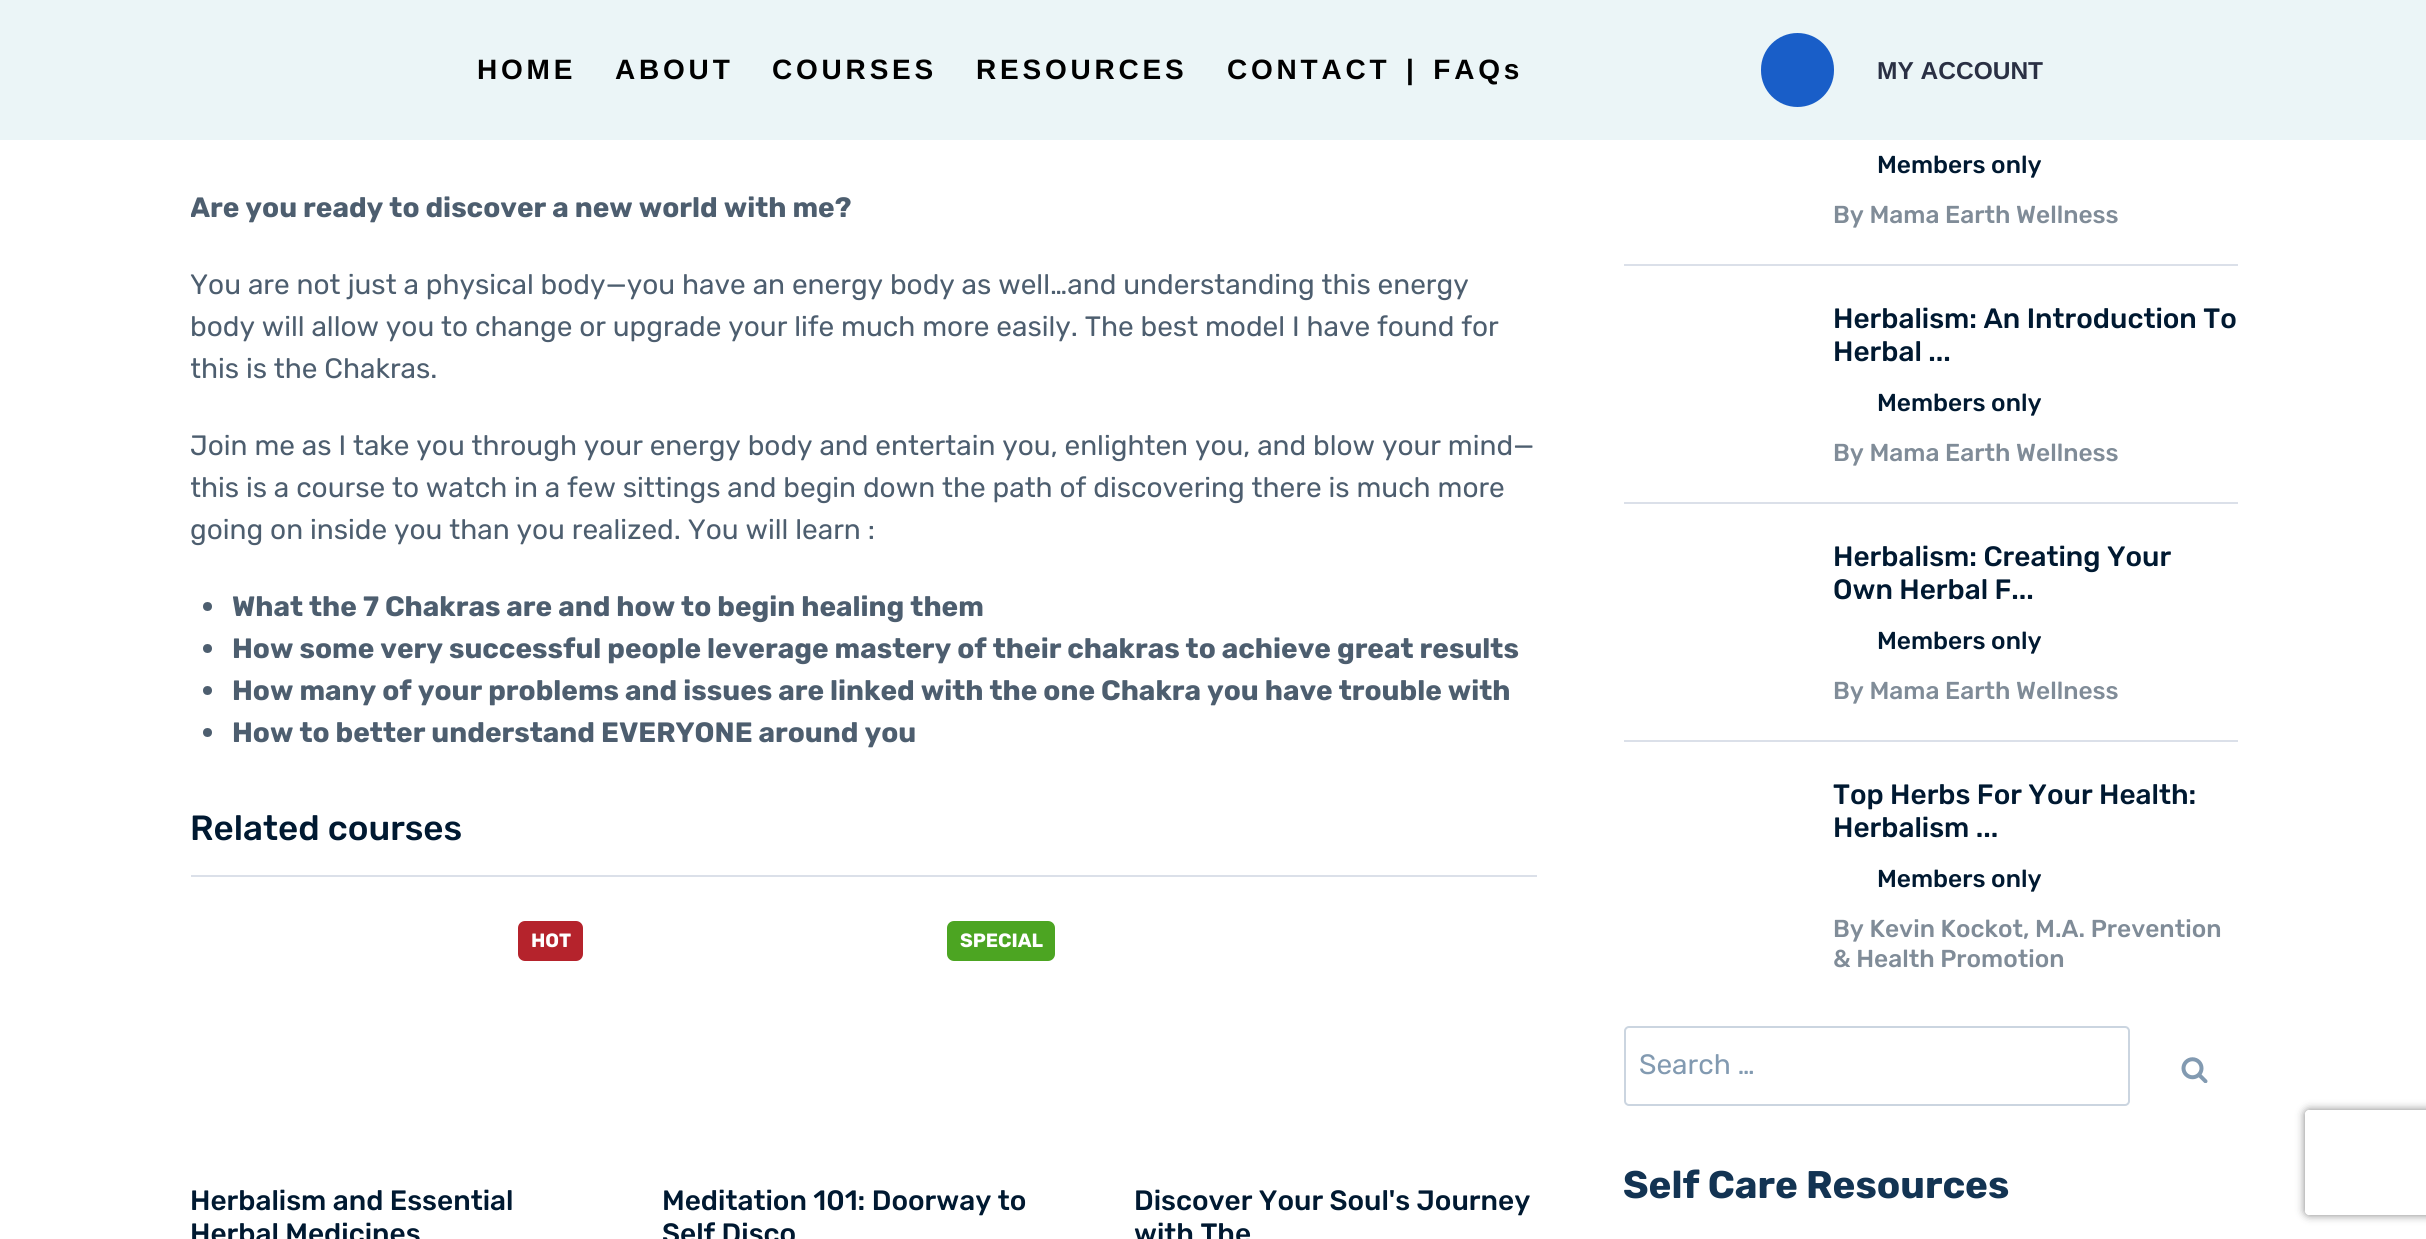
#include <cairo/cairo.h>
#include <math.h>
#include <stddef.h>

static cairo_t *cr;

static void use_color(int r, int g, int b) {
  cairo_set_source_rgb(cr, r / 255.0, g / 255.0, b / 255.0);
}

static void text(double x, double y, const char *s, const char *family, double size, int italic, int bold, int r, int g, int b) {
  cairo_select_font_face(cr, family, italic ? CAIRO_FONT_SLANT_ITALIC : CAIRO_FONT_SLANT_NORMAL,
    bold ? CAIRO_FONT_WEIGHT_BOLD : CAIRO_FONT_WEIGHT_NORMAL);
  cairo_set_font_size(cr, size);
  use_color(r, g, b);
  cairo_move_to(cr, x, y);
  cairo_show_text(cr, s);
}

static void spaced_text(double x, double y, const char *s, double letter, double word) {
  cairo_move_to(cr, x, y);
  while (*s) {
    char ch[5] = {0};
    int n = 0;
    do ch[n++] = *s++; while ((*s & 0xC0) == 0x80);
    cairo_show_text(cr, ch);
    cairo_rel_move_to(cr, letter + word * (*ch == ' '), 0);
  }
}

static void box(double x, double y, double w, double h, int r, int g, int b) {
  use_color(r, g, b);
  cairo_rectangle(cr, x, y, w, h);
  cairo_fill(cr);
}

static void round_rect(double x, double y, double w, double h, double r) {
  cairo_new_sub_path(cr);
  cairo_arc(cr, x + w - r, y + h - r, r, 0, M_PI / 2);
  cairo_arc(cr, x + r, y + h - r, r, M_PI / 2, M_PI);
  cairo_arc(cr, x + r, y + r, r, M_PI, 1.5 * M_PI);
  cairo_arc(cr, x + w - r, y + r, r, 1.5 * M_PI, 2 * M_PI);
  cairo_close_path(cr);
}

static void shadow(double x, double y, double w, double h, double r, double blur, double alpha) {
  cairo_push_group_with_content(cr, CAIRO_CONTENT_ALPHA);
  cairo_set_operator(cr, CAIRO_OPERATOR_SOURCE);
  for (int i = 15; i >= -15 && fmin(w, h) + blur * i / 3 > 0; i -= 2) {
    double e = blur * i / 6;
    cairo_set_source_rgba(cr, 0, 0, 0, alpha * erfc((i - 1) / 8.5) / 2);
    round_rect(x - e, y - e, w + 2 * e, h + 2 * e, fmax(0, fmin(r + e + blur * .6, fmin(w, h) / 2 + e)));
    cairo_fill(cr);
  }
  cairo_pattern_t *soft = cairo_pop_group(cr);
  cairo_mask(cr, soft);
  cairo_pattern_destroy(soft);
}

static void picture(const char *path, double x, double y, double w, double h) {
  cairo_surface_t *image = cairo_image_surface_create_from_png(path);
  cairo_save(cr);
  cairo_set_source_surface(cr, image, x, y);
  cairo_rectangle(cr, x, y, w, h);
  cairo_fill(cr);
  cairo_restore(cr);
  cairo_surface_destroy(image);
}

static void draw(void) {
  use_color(255, 255, 255);
  cairo_paint(cr);
  box(0, 0, 2426, 140, 235, 245, 247);
  use_color(25, 94, 200);
  round_rect(1761, 33, 73, 74, 36.5);
  cairo_fill(cr);
  use_color(77, 94, 111);
  cairo_arc(cr, 207.5, 606.5, 4.5, 0, 2 * M_PI);
  cairo_fill(cr);
  cairo_arc(cr, 207.5, 648.5, 4.5, 0, 2 * M_PI);
  cairo_fill(cr);
  cairo_arc(cr, 207.5, 690.5, 4.5, 0, 2 * M_PI);
  cairo_fill(cr);
  cairo_arc(cr, 207.5, 732.5, 4.5, 0, 2 * M_PI);
  cairo_fill(cr);
  box(191, 875, 1346, 2, 219, 224, 233);
  use_color(181, 35, 44);
  round_rect(518, 921, 65, 40, 7);
  cairo_fill(cr);
  use_color(76, 165, 34);
  round_rect(947, 921, 108, 40, 7);
  cairo_fill(cr);
  box(1624, 264, 614, 2, 219, 224, 233);
  box(1624, 502, 614, 2, 219, 224, 233);
  box(1624, 740, 614, 2, 219, 224, 233);
  round_rect(1625, 1027, 504, 78, 4);
  use_color(203, 213, 224);
  cairo_stroke(cr);
  picture("img_01.png", 2181, 1057, 27, 26);
  cairo_save(cr);
  cairo_set_fill_rule(cr, CAIRO_FILL_RULE_EVEN_ODD);
  cairo_new_path(cr);
  cairo_move_to(cr, 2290, 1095);
  cairo_line_to(cr, 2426, 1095);
  cairo_line_to(cr, 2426, 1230);
  cairo_line_to(cr, 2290, 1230);
  cairo_close_path(cr);
  cairo_move_to(cr, 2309, 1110);
  cairo_line_to(cr, 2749, 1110);
  cairo_curve_to(cr, 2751, 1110, 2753, 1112, 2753, 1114);
  cairo_line_to(cr, 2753, 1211);
  cairo_curve_to(cr, 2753, 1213, 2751, 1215, 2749, 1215);
  cairo_line_to(cr, 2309, 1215);
  cairo_curve_to(cr, 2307, 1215, 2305, 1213, 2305, 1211);
  cairo_line_to(cr, 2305, 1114);
  cairo_curve_to(cr, 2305, 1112, 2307, 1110, 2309, 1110);
  cairo_close_path(cr);
  cairo_clip(cr);
  use_color(128, 128, 128);
  shadow(2305, 1110, 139, 105, 4, 4.5, 1);
  cairo_restore(cr);
  cairo_select_font_face(cr, "Liberation Sans", CAIRO_FONT_SLANT_NORMAL, CAIRO_FONT_WEIGHT_BOLD);
  cairo_set_font_size(cr, 28);
  use_color(0, 0, 0);
  spaced_text(477, 79, "HOME", 3.8, 0);
  spaced_text(615, 79, "ABOUT", 3.8, 0);
  spaced_text(772, 79, "COURSES", 3.8, 0);
  spaced_text(976, 79, "RESOURCES", 3.8, 0);
  spaced_text(1227, 79, "CONTACT | FAQs", 3.8, 4);
  text(1877, 79, "MY ACCOUNT", "Liberation Sans", 24.5, 0, 1, 42, 48, 68);
  cairo_save(cr);
  cairo_rectangle(cr, 191, 100, 1346, 654);
  cairo_clip(cr);
  text(190, 217, "Are you ready to discover a new world with me?", "Rubik", 28, 0, 1, 77, 94, 111);
  cairo_restore(cr);
  text(190, 294, "You are not just a physical body—you have an energy body as well…and understanding this energy", "Rubik", 28, 0, 0, 77, 94, 111);
  text(190, 336, "body will allow you to change or upgrade your life much more easily. The best model I have found for", "Rubik", 28, 0, 0, 77, 94, 111);
  cairo_save(cr);
  cairo_rectangle(cr, 191, 100, 1346, 654);
  cairo_clip(cr);
  text(190, 378, "this is the Chakras.", "Rubik", 28, 0, 0, 77, 94, 111);
  cairo_restore(cr);
  text(190, 455, "Join me as I take you through your energy body and entertain you, enlighten you, and blow your mind—", "Rubik", 28, 0, 0, 77, 94, 111);
  cairo_save(cr);
  cairo_rectangle(cr, 191, 100, 1346, 654);
  cairo_clip(cr);
  text(190, 497, "this is a course to watch in a few sittings and begin down the path of discovering there is much more", "Rubik", 28, 0, 0, 77, 94, 111);
  cairo_restore(cr);
  text(190, 539, "going on inside you than you realized. You will learn :", "Rubik", 28, 0, 0, 77, 94, 111);
  text(232, 616, "What the 7 Chakras are and how to begin healing them", "Rubik", 28, 0, 1, 77, 94, 111);
  text(232, 658, "How some very successful people leverage mastery of their chakras to achieve great results", "Rubik", 28, 0, 1, 77, 94, 111);
  text(232, 700, "How many of your problems and issues are linked with the one Chakra you have trouble with", "Rubik", 28, 0, 1, 77, 94, 111);
  text(232, 742, "How to better understand EVERYONE around you", "Rubik", 28, 0, 1, 77, 94, 111);
  text(190, 840, "Related courses", "Rubik Medium", 35, 0, 0, 0, 25, 49);
  text(531, 947, "HOT", "Rubik", 19.25, 0, 1, 255, 255, 255);
  text(190, 1210, "Herbalism and Essential", "Rubik Medium", 28, 0, 0, 0, 25, 49);
  text(190, 1243, "Herbal Medicines", "Rubik Medium", 28, 0, 0, 0, 25, 49);
  text(960, 947, "SPECIAL", "Rubik", 19.25, 0, 1, 255, 255, 255);
  text(662, 1210, "Meditation 101: Doorway to", "Rubik Medium", 28, 0, 0, 0, 25, 49);
  text(662, 1243, "Self Disco", "Rubik Medium", 28, 0, 0, 0, 25, 49);
  text(1134, 1210, "Discover Your Soul's Journey", "Rubik Medium", 28, 0, 0, 0, 25, 49);
  text(1134, 1243, "with The", "Rubik Medium", 28, 0, 0, 0, 25, 49);
  text(1877, 173, "Members only", "Rubik Medium", 24.5, 0, 0, 0, 25, 49);
  text(1833, 223, "By Mama Earth Wellness", "Rubik Medium", 24.5, 0, 0, 128, 140, 152);
  text(1833, 328, "Herbalism: An Introduction To", "Rubik Medium", 28, 0, 0, 0, 25, 49);
  text(1833, 361, "Herbal ...", "Rubik Medium", 28, 0, 0, 0, 25, 49);
  text(1877, 411, "Members only", "Rubik Medium", 24.5, 0, 0, 0, 25, 49);
  text(1833, 461, "By Mama Earth Wellness", "Rubik Medium", 24.5, 0, 0, 128, 140, 152);
  text(1833, 566, "Herbalism: Creating Your", "Rubik Medium", 28, 0, 0, 0, 25, 49);
  text(1833, 599, "Own Herbal F...", "Rubik Medium", 28, 0, 0, 0, 25, 49);
  text(1877, 649, "Members only", "Rubik Medium", 24.5, 0, 0, 0, 25, 49);
  text(1833, 699, "By Mama Earth Wellness", "Rubik Medium", 24.5, 0, 0, 128, 140, 152);
  text(1833, 804, "Top Herbs For Your Health:", "Rubik Medium", 28, 0, 0, 0, 25, 49);
  text(1833, 837, "Herbalism ...", "Rubik Medium", 28, 0, 0, 0, 25, 49);
  text(1877, 887, "Members only", "Rubik Medium", 24.5, 0, 0, 0, 25, 49);
  text(1833, 937, "By Kevin Kockot, M.A. Prevention", "Rubik Medium", 24.5, 0, 0, 128, 140, 152);
  text(1833, 967, "& Health Promotion", "Rubik Medium", 24.5, 0, 0, 128, 140, 152);
  text(1639, 1074, "Search …", "Rubik", 28, 0, 0, 130, 154, 177);
  text(1623, 1198, "Self Care Resources", "Rubik", 38.5, 0, 1, 19, 52, 83);
}

int main(void) {
  cairo_surface_t *surface = cairo_image_surface_create(CAIRO_FORMAT_RGB24, 2426, 1239);
  cr = cairo_create(surface);
  cairo_font_options_t *options = cairo_font_options_create();
  cairo_font_options_set_hint_metrics(options, CAIRO_HINT_METRICS_OFF);
  cairo_font_options_set_hint_style(options, CAIRO_HINT_STYLE_NONE);
  cairo_set_font_options(cr, options);
  cairo_set_miter_limit(cr, 4);
  draw();
  cairo_surface_write_to_png(surface, "out.png");
  cairo_font_options_destroy(options);
  cairo_destroy(cr);
  cairo_surface_destroy(surface);
  return 0;
}
